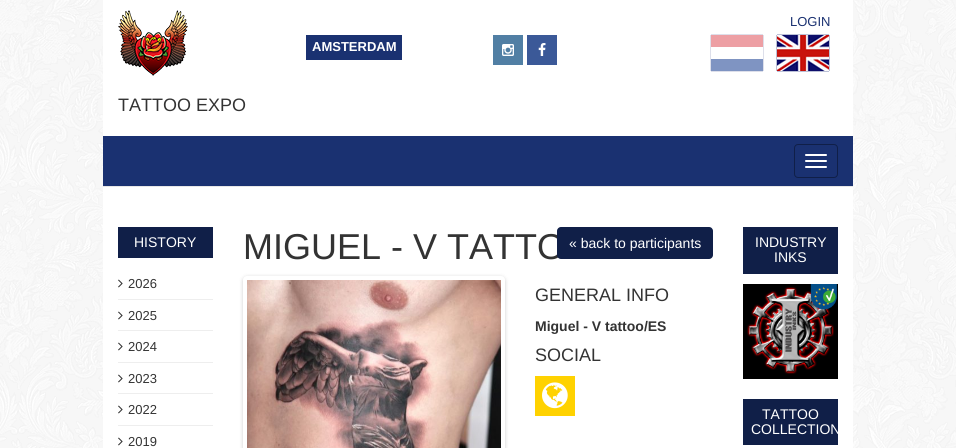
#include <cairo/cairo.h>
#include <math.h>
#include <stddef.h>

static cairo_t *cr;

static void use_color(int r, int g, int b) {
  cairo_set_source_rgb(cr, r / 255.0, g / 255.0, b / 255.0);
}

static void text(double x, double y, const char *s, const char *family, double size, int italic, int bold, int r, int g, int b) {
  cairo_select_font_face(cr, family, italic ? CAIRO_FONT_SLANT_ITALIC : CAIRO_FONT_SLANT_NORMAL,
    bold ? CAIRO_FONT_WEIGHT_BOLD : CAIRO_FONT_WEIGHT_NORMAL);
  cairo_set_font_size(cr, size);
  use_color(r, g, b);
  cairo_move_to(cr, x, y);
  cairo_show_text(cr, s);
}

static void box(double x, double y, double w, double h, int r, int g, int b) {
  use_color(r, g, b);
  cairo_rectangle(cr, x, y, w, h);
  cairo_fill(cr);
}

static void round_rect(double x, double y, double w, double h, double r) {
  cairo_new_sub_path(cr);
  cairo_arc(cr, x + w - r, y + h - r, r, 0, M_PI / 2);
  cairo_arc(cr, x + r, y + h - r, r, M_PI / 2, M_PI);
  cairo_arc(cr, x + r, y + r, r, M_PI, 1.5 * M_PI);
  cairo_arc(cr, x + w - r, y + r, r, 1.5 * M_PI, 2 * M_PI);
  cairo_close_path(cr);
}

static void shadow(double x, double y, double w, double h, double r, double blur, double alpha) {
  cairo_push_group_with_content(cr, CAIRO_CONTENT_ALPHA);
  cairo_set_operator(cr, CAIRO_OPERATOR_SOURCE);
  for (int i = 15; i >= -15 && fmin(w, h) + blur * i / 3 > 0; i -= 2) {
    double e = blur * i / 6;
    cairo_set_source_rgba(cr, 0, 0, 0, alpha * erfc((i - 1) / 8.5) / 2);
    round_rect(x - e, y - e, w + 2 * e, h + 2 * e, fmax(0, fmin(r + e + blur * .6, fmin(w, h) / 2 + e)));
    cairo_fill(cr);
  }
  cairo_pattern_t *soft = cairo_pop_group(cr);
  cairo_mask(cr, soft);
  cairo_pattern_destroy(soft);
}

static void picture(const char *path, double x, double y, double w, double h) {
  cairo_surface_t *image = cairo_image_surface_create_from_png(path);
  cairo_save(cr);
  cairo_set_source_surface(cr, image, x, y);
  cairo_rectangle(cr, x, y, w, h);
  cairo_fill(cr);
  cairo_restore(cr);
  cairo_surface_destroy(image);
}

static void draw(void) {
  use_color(255, 255, 255);
  cairo_paint(cr);
  picture("img_01.png", 0, 0, 956, 448);
  box(103, 0, 750, 448, 255, 255, 255);
  picture("img_02.png", 710, 34, 54, 38);
  picture("img_03.png", 776, 34, 54, 38);
  box(306, 35, 96, 25, 26, 49, 113);
  box(493, 35, 30, 30, 81, 127, 164);
  picture("img_04.png", 502, 44, 12, 12);
  box(527, 35, 30, 30, 59, 89, 152);
  picture("img_05.png", 538, 43, 8, 13);
  picture("img_06.png", 118, 10, 70, 66);
  box(103, 136, 750, 50, 26, 49, 113);
  box(103, 186, 750, 1, 231, 231, 231);
  round_rect(794.5, 144.5, 43, 33, 3.5);
  use_color(16, 31, 72);
  cairo_set_line_width(cr, 1);
  cairo_stroke(cr);
  use_color(255, 255, 255);
  round_rect(805, 154, 22, 2, 1);
  cairo_fill(cr);
  round_rect(805, 160, 22, 2, 1);
  cairo_fill(cr);
  round_rect(805, 166, 22, 2, 1);
  cairo_fill(cr);
  box(118, 227, 95, 31, 16, 31, 72);
  box(118, 299, 95, 1, 238, 238, 238);
  picture("img_07.png", 118, 279, 5, 9);
  box(118, 330, 95, 1, 238, 238, 238);
  picture("img_07.png", 118, 311, 5, 9);
  box(118, 362, 95, 1, 238, 238, 238);
  picture("img_07.png", 118, 342, 5, 9);
  box(118, 393, 95, 1, 238, 238, 238);
  picture("img_07.png", 118, 374, 5, 9);
  box(118, 425, 95, 1, 238, 238, 238);
  picture("img_07.png", 118, 405, 5, 9);
  picture("img_07.png", 118, 437, 5, 9);
  use_color(0, 0, 0);
  shadow(243, 277, 262, 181, 4, 2, 0.2);
  use_color(255, 255, 255);
  round_rect(243, 276, 262, 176, 4);
  cairo_fill(cr);
  picture("img_08.png", 247, 280, 254, 168);
  box(535, 376, 40, 40, 255, 210, 0);
  picture("img_09.png", 542, 382, 26, 27);
  box(743, 227, 95, 47, 16, 31, 72);
  picture("img_10.png", 743, 284, 95, 95);
  box(743, 399, 95, 46, 16, 31, 72);
  text(790, 26, "LOGIN", "Liberation Sans", 13, 0, 0, 26, 49, 113);
  text(312, 51, "AMSTERDAM", "Liberation Sans", 13, 0, 1, 255, 255, 255);
  text(118, 111, "TATTOO EXPO", "Liberation Sans", 18, 0, 0, 51, 51, 51);
  text(134, 247, "HISTORY", "Liberation Sans", 14, 0, 0, 255, 255, 255);
  text(128, 288, "2026", "Liberation Sans", 13, 0, 0, 51, 51, 51);
  text(128, 320, "2025", "Liberation Sans", 13, 0, 0, 51, 51, 51);
  text(128, 351, "2024", "Liberation Sans", 13, 0, 0, 51, 51, 51);
  text(128, 383, "2023", "Liberation Sans", 13, 0, 0, 51, 51, 51);
  text(128, 414, "2022", "Liberation Sans", 13, 0, 0, 51, 51, 51);
  text(128, 446, "2019", "Liberation Sans", 13, 0, 0, 51, 51, 51);
  text(243, 259, "MIGUEL - V TATTO", "Liberation Sans", 36, 0, 0, 51, 51, 51);
  use_color(16, 31, 72);
  round_rect(557, 227, 156, 32, 4);
  cairo_fill(cr);
  text(569, 248, "« back to participants", "Liberation Sans", 14, 0, 0, 255, 255, 255);
  text(535, 301, "GENERAL INFO", "Liberation Sans", 18, 0, 0, 51, 51, 51);
  text(535, 331, "Miguel - V tattoo/ES", "Liberation Sans", 14, 0, 1, 51, 51, 51);
  text(535, 361, "SOCIAL", "Liberation Sans", 18, 0, 0, 51, 51, 51);
  text(755, 247, "INDUSTRY", "Liberation Sans", 14, 0, 0, 255, 255, 255);
  text(774, 262, "INKS", "Liberation Sans", 14, 0, 0, 255, 255, 255);
  text(762, 419, "TATTOO", "Liberation Sans", 14, 0, 0, 255, 255, 255);
  text(751, 434, "COLLECTION", "Liberation Sans", 14, 0, 0, 255, 255, 255);
}

int main(void) {
  cairo_surface_t *surface = cairo_image_surface_create(CAIRO_FORMAT_RGB24, 956, 448);
  cr = cairo_create(surface);
  cairo_font_options_t *options = cairo_font_options_create();
  cairo_font_options_set_hint_metrics(options, CAIRO_HINT_METRICS_OFF);
  cairo_font_options_set_hint_style(options, CAIRO_HINT_STYLE_NONE);
  cairo_set_font_options(cr, options);
  cairo_set_miter_limit(cr, 4);
  draw();
  cairo_surface_write_to_png(surface, "out.png");
  cairo_font_options_destroy(options);
  cairo_destroy(cr);
  cairo_surface_destroy(surface);
  return 0;
}
